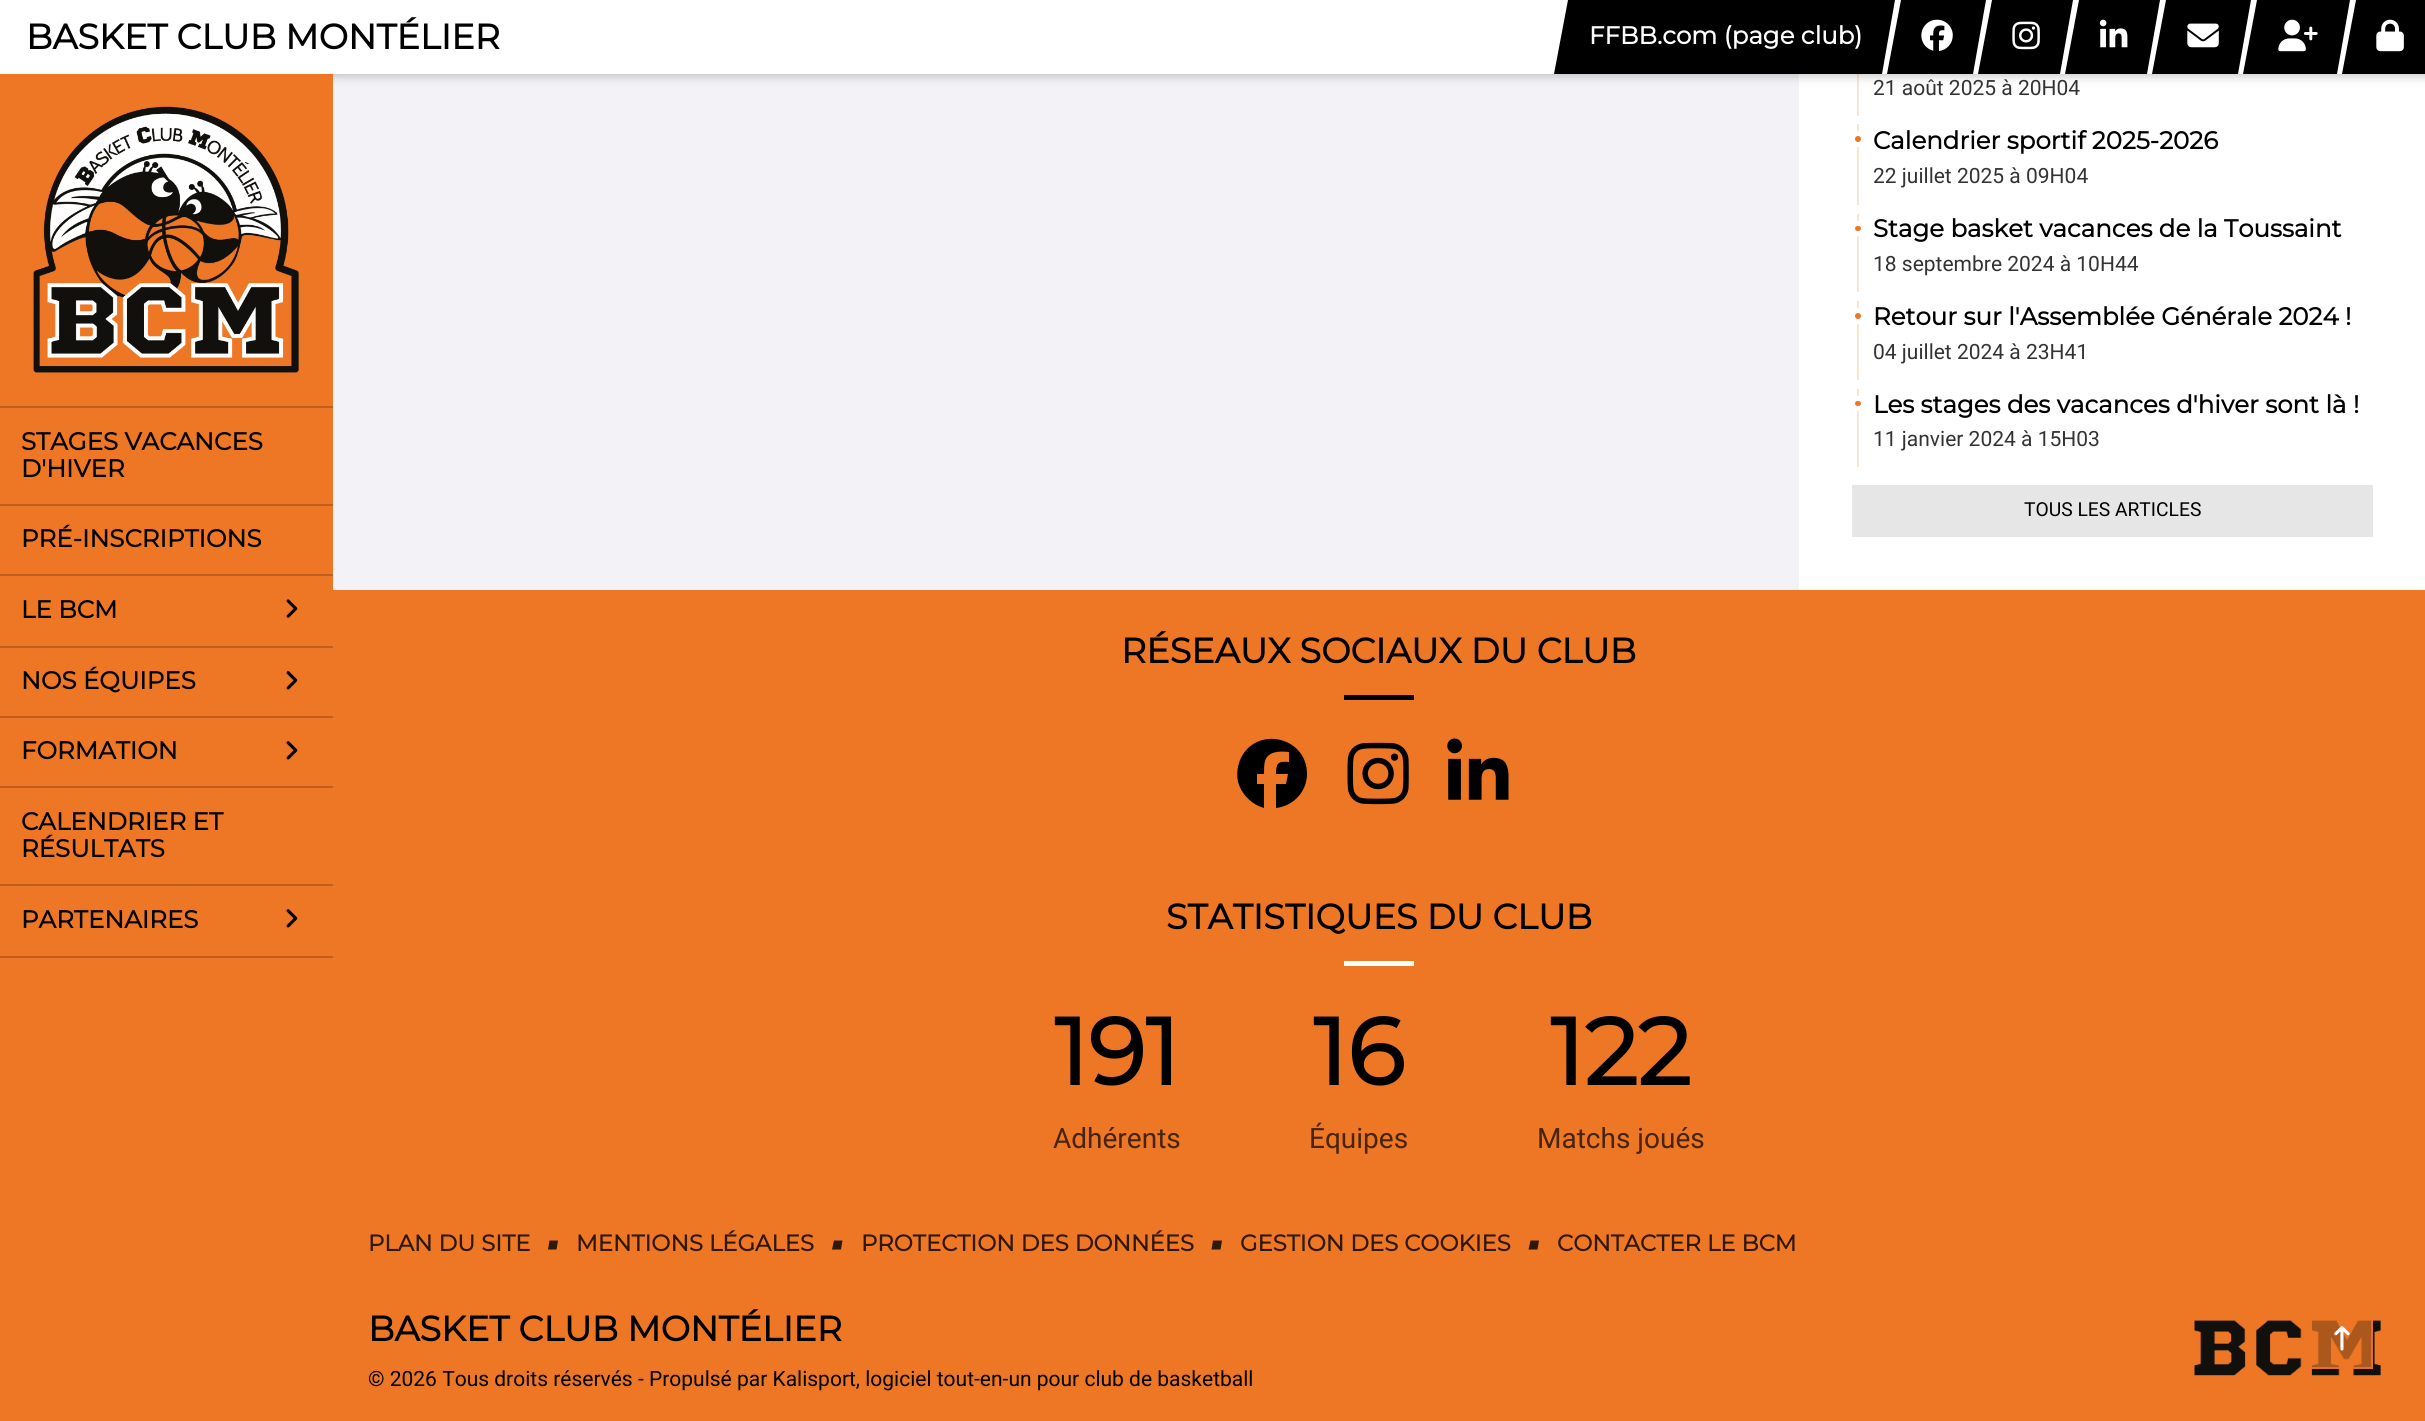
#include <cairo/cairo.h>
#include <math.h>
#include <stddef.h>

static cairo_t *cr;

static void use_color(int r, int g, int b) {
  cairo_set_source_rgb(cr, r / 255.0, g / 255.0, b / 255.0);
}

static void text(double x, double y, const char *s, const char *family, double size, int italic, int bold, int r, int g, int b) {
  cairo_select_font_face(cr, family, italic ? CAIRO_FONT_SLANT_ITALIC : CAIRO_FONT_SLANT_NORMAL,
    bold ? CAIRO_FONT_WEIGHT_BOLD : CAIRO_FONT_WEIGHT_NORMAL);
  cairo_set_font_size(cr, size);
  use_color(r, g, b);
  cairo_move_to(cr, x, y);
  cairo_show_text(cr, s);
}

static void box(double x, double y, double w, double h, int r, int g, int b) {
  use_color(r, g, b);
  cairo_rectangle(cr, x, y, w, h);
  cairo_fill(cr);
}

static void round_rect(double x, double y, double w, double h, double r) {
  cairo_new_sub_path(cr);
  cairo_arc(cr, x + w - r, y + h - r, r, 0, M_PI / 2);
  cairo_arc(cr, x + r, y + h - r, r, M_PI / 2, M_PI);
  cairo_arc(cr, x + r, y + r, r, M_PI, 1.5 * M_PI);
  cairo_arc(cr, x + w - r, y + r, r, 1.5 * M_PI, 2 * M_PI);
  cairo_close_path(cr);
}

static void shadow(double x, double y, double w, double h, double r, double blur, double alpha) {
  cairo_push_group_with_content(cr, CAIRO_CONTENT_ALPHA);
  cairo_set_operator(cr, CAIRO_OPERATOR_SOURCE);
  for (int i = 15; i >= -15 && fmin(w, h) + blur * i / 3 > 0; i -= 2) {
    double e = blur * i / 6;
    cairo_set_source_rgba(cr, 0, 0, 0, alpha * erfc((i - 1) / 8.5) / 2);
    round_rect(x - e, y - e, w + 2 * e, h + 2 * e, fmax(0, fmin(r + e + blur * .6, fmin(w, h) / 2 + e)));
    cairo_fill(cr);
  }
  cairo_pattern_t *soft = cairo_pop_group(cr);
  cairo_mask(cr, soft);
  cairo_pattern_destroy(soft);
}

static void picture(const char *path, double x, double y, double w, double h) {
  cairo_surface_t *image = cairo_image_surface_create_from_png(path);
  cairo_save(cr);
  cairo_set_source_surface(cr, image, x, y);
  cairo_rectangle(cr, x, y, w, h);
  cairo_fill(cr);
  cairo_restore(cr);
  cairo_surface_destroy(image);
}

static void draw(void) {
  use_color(243, 242, 247);
  cairo_paint(cr);
  box(1799, 74, 626, 516, 255, 255, 255);
  box(1857, 74, 2, 42, 252, 228, 211);
  use_color(0, 0, 0);
  shadow(7, 4, 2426, 73, 0, 4.5, 0.2);
  box(0, 0, 2339, 74, 255, 255, 255);
  use_color(0, 0, 0);
  cairo_new_path(cr);
  cairo_move_to(cr, 1564, 0);
  cairo_line_to(cr, 1897, 0);
  cairo_line_to(cr, 1883, 74);
  cairo_line_to(cr, 1551, 74);
  cairo_close_path(cr);
  cairo_fill(cr);
  use_color(255, 255, 255);
  cairo_new_path(cr);
  cairo_move_to(cr, 1564, 0);
  cairo_line_to(cr, 1568, 0);
  cairo_line_to(cr, 1554, 74);
  cairo_line_to(cr, 1551, 74);
  cairo_close_path(cr);
  cairo_fill(cr);
  cairo_new_path(cr);
  cairo_move_to(cr, 1562, 0);
  cairo_line_to(cr, 1566, 0);
  cairo_line_to(cr, 1552, 74);
  cairo_line_to(cr, 1549, 74);
  cairo_close_path(cr);
  cairo_fill(cr);
  use_color(0, 0, 0);
  cairo_new_path(cr);
  cairo_move_to(cr, 1897, 0);
  cairo_line_to(cr, 1988, 0);
  cairo_line_to(cr, 1974, 74);
  cairo_line_to(cr, 1883, 74);
  cairo_close_path(cr);
  cairo_fill(cr);
  use_color(255, 255, 255);
  cairo_new_path(cr);
  cairo_move_to(cr, 1897, 0);
  cairo_line_to(cr, 1901, 0);
  cairo_line_to(cr, 1887, 74);
  cairo_line_to(cr, 1883, 74);
  cairo_close_path(cr);
  cairo_fill(cr);
  cairo_new_path(cr);
  cairo_move_to(cr, 1895, 0);
  cairo_line_to(cr, 1899, 0);
  cairo_line_to(cr, 1885, 74);
  cairo_line_to(cr, 1882, 74);
  cairo_close_path(cr);
  cairo_fill(cr);
  picture("img_01.png", 1921, 19, 32, 32);
  use_color(0, 0, 0);
  cairo_new_path(cr);
  cairo_move_to(cr, 1988, 0);
  cairo_line_to(cr, 2075, 0);
  cairo_line_to(cr, 2062, 74);
  cairo_line_to(cr, 1974, 74);
  cairo_close_path(cr);
  cairo_fill(cr);
  use_color(255, 255, 255);
  cairo_new_path(cr);
  cairo_move_to(cr, 1988, 0);
  cairo_line_to(cr, 1992, 0);
  cairo_line_to(cr, 1978, 74);
  cairo_line_to(cr, 1974, 74);
  cairo_close_path(cr);
  cairo_fill(cr);
  cairo_new_path(cr);
  cairo_move_to(cr, 1986, 0);
  cairo_line_to(cr, 1990, 0);
  cairo_line_to(cr, 1976, 74);
  cairo_line_to(cr, 1973, 74);
  cairo_close_path(cr);
  cairo_fill(cr);
  picture("img_02.png", 2012, 21, 28, 29);
  use_color(0, 0, 0);
  cairo_new_path(cr);
  cairo_move_to(cr, 2075, 0);
  cairo_line_to(cr, 2162, 0);
  cairo_line_to(cr, 2149, 74);
  cairo_line_to(cr, 2062, 74);
  cairo_close_path(cr);
  cairo_fill(cr);
  use_color(255, 255, 255);
  cairo_new_path(cr);
  cairo_move_to(cr, 2075, 0);
  cairo_line_to(cr, 2079, 0);
  cairo_line_to(cr, 2065, 74);
  cairo_line_to(cr, 2062, 74);
  cairo_close_path(cr);
  cairo_fill(cr);
  cairo_new_path(cr);
  cairo_move_to(cr, 2073, 0);
  cairo_line_to(cr, 2077, 0);
  cairo_line_to(cr, 2063, 74);
  cairo_line_to(cr, 2060, 74);
  cairo_close_path(cr);
  cairo_fill(cr);
  picture("img_03.png", 2099, 19, 29, 29);
  use_color(0, 0, 0);
  cairo_new_path(cr);
  cairo_move_to(cr, 2162, 0);
  cairo_line_to(cr, 2253, 0);
  cairo_line_to(cr, 2240, 74);
  cairo_line_to(cr, 2149, 74);
  cairo_close_path(cr);
  cairo_fill(cr);
  use_color(255, 255, 255);
  cairo_new_path(cr);
  cairo_move_to(cr, 2162, 0);
  cairo_line_to(cr, 2166, 0);
  cairo_line_to(cr, 2152, 74);
  cairo_line_to(cr, 2149, 74);
  cairo_close_path(cr);
  cairo_fill(cr);
  cairo_new_path(cr);
  cairo_move_to(cr, 2160, 0);
  cairo_line_to(cr, 2164, 0);
  cairo_line_to(cr, 2150, 74);
  cairo_line_to(cr, 2147, 74);
  cairo_close_path(cr);
  cairo_fill(cr);
  picture("img_04.png", 2187, 23, 32, 25);
  use_color(0, 0, 0);
  cairo_new_path(cr);
  cairo_move_to(cr, 2253, 0);
  cairo_line_to(cr, 2352, 0);
  cairo_line_to(cr, 2338, 74);
  cairo_line_to(cr, 2240, 74);
  cairo_close_path(cr);
  cairo_fill(cr);
  use_color(255, 255, 255);
  cairo_new_path(cr);
  cairo_move_to(cr, 2253, 0);
  cairo_line_to(cr, 2257, 0);
  cairo_line_to(cr, 2243, 74);
  cairo_line_to(cr, 2240, 74);
  cairo_close_path(cr);
  cairo_fill(cr);
  cairo_new_path(cr);
  cairo_move_to(cr, 2251, 0);
  cairo_line_to(cr, 2255, 0);
  cairo_line_to(cr, 2241, 74);
  cairo_line_to(cr, 2238, 74);
  cairo_close_path(cr);
  cairo_fill(cr);
  picture("img_05.png", 2278, 19, 40, 33);
  use_color(0, 0, 0);
  cairo_new_path(cr);
  cairo_move_to(cr, 2352, 0);
  cairo_line_to(cr, 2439, 0);
  cairo_line_to(cr, 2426, 74);
  cairo_line_to(cr, 2338, 74);
  cairo_close_path(cr);
  cairo_fill(cr);
  use_color(255, 255, 255);
  cairo_new_path(cr);
  cairo_move_to(cr, 2352, 0);
  cairo_line_to(cr, 2356, 0);
  cairo_line_to(cr, 2342, 74);
  cairo_line_to(cr, 2338, 74);
  cairo_close_path(cr);
  cairo_fill(cr);
  cairo_new_path(cr);
  cairo_move_to(cr, 2350, 0);
  cairo_line_to(cr, 2354, 0);
  cairo_line_to(cr, 2340, 74);
  cairo_line_to(cr, 2337, 74);
  cairo_close_path(cr);
  cairo_fill(cr);
  picture("img_06.png", 2376, 19, 28, 33);
  box(0, 74, 333, 1347, 238, 119, 37);
  picture("img_07.png", 33, 106, 266, 267);
  box(0, 956, 333, 2, 190, 95, 30);
  box(0, 406, 333, 2, 190, 95, 30);
  box(0, 504, 333, 2, 190, 95, 30);
  box(0, 574, 333, 2, 190, 95, 30);
  picture("img_08.png", 286, 599, 12, 19);
  box(0, 646, 333, 2, 190, 95, 30);
  picture("img_09.png", 286, 671, 12, 19);
  box(0, 716, 333, 2, 190, 95, 30);
  picture("img_09.png", 286, 741, 12, 19);
  box(0, 786, 333, 2, 190, 95, 30);
  box(0, 884, 333, 2, 190, 95, 30);
  picture("img_09.png", 286, 909, 12, 19);
  box(1857, 124, 2, 81, 252, 228, 211);
  cairo_save(cr);
  cairo_rectangle(cr, 1852, 0, 521, 485);
  cairo_clip(cr);
  use_color(238, 119, 37);
  cairo_arc(cr, 1858, 139, 5.5, 0, 2 * M_PI);
  cairo_fill_preserve(cr);
  use_color(255, 255, 255);
  cairo_set_line_width(cr, 5);
  cairo_stroke(cr);
  cairo_restore(cr);
  box(1857, 214, 2, 78, 252, 228, 211);
  cairo_save(cr);
  cairo_rectangle(cr, 1852, 0, 521, 485);
  cairo_clip(cr);
  use_color(238, 119, 37);
  round_rect(1852.5, 223.5, 11, 10, 5);
  cairo_fill_preserve(cr);
  use_color(255, 255, 255);
  cairo_set_line_width(cr, 5);
  cairo_stroke(cr);
  cairo_restore(cr);
  box(1857, 301, 2, 79, 252, 228, 211);
  cairo_save(cr);
  cairo_rectangle(cr, 1852, 0, 521, 485);
  cairo_clip(cr);
  use_color(238, 119, 37);
  cairo_arc(cr, 1858, 316, 5.5, 0, 2 * M_PI);
  cairo_fill_preserve(cr);
  use_color(255, 255, 255);
  cairo_set_line_width(cr, 5);
  cairo_stroke(cr);
  cairo_restore(cr);
  box(1857, 389, 2, 78, 252, 228, 211);
  cairo_save(cr);
  cairo_rectangle(cr, 1852, 0, 521, 485);
  cairo_clip(cr);
  use_color(238, 119, 37);
  round_rect(1852.5, 398.5, 11, 10, 5);
  cairo_fill_preserve(cr);
  use_color(255, 255, 255);
  cairo_set_line_width(cr, 5);
  cairo_stroke(cr);
  cairo_restore(cr);
  box(1852, 485, 521, 52, 230, 230, 230);
  box(333, 590, 2092, 831, 238, 119, 37);
  picture("img_13.png", 2194, 1320, 188, 56);
  cairo_set_source_rgba(cr, 0.933, 0.467, 0.145, 0.7);
  cairo_rectangle(cr, 2311, 1320, 62, 49);
  cairo_fill(cr);
  cairo_rectangle(cr, 2311, 1310, 61, 58);
  cairo_set_source_rgba(cr, 0.933, 0.467, 0.145, 0.8);
  cairo_stroke(cr);
  picture("img_10.png", 2334, 1326, 16, 25);
  box(1344, 695, 70, 5, 0, 0, 0);
  cairo_new_path(cr);
  cairo_move_to(cr, 1307, 774);
  cairo_curve_to(cr, 1307, 736, 1255, 725, 1240, 760);
  cairo_curve_to(cr, 1237, 768, 1236, 777, 1239, 785);
  cairo_curve_to(cr, 1243, 796, 1253, 805, 1264, 808);
  cairo_line_to(cr, 1264, 784);
  cairo_line_to(cr, 1257, 784);
  cairo_line_to(cr, 1257, 774);
  cairo_line_to(cr, 1264, 774);
  cairo_curve_to(cr, 1264, 769, 1264, 765, 1265, 761);
  cairo_curve_to(cr, 1268, 751, 1280, 751, 1289, 752);
  cairo_line_to(cr, 1289, 762);
  cairo_curve_to(cr, 1278, 761, 1276, 763, 1276, 774);
  cairo_line_to(cr, 1288, 774);
  cairo_line_to(cr, 1286, 784);
  cairo_line_to(cr, 1276, 784);
  cairo_line_to(cr, 1276, 808);
  cairo_curve_to(cr, 1294, 806, 1307, 791, 1307, 774);
  cairo_close_path(cr);
  cairo_fill(cr);
  picture("img_11.png", 1347, 742, 62, 63);
  picture("img_12.png", 1447, 738, 62, 62);
  box(1344, 961, 70, 5, 255, 255, 255);
  use_color(48, 24, 7);
  cairo_new_path(cr);
  cairo_move_to(cr, 549.5, 1240.5);
  cairo_line_to(cr, 558, 1240.5);
  cairo_line_to(cr, 556.5, 1249.5);
  cairo_line_to(cr, 548, 1249.5);
  cairo_close_path(cr);
  cairo_fill(cr);
  cairo_new_path(cr);
  cairo_move_to(cr, 834, 1240.5);
  cairo_line_to(cr, 842.5, 1240.5);
  cairo_line_to(cr, 841, 1249.5);
  cairo_line_to(cr, 832, 1249.5);
  cairo_close_path(cr);
  cairo_fill(cr);
  cairo_new_path(cr);
  cairo_move_to(cr, 1213, 1240.5);
  cairo_line_to(cr, 1222, 1240.5);
  cairo_line_to(cr, 1220.5, 1249.5);
  cairo_line_to(cr, 1211.5, 1249.5);
  cairo_close_path(cr);
  cairo_fill(cr);
  cairo_new_path(cr);
  cairo_move_to(cr, 1530.5, 1240.5);
  cairo_line_to(cr, 1539, 1240.5);
  cairo_line_to(cr, 1537.5, 1249.5);
  cairo_line_to(cr, 1528.5, 1249.5);
  cairo_close_path(cr);
  cairo_fill(cr);
  text(26, 49, "BASKET CLUB MONTÉLIER", "Montserrat", 35, 0, 1, 0, 0, 0);
  text(1589, 44, "FFBB.com (page club)", "Montserrat", 24.5, 0, 1, 255, 255, 255);
  text(21, 450, "STAGES VACANCES", "Montserrat", 24.5, 0, 1, 0, 0, 0);
  text(21, 477, "D'HIVER", "Montserrat", 24.5, 0, 1, 0, 0, 0);
  text(21, 547, "PRÉ-INSCRIPTIONS", "Montserrat", 24.5, 0, 1, 0, 0, 0);
  text(21, 618, "LE BCM", "Montserrat", 24.5, 0, 1, 0, 0, 0);
  text(21, 689, "NOS ÉQUIPES", "Montserrat", 24.5, 0, 1, 0, 0, 0);
  text(21, 759, "FORMATION", "Montserrat", 24.5, 0, 1, 0, 0, 0);
  text(21, 830, "CALENDRIER ET", "Montserrat", 24.5, 0, 1, 0, 0, 0);
  text(21, 857, "RÉSULTATS", "Montserrat", 24.5, 0, 1, 0, 0, 0);
  text(21, 928, "PARTENAIRES", "Montserrat", 24.5, 0, 1, 0, 0, 0);
  text(1873, 95, "21 août 2025 à 20H04", "Roboto", 21, 0, 0, 51, 51, 51);
  text(1873, 149, "Calendrier sportif 2025-2026", "Montserrat", 24.5, 0, 1, 0, 0, 0);
  text(1873, 183, "22 juillet 2025 à 09H04", "Roboto", 21, 0, 0, 51, 51, 51);
  text(1873, 237, "Stage basket vacances de la Toussaint", "Montserrat", 24.5, 0, 1, 0, 0, 0);
  text(1873, 271, "18 septembre 2024 à 10H44", "Roboto", 21, 0, 0, 51, 51, 51);
  text(1873, 325, "Retour sur l'Assemblée Générale 2024 !", "Montserrat", 24.5, 0, 1, 0, 0, 0);
  text(1873, 359, "04 juillet 2024 à 23H41", "Roboto", 21, 0, 0, 51, 51, 51);
  text(1873, 413, "Les stages des vacances d'hiver sont là !", "Montserrat", 24.5, 0, 1, 0, 0, 0);
  text(1873, 446, "11 janvier 2024 à 15H03", "Roboto", 21, 0, 0, 51, 51, 51);
  text(2024, 516, "TOUS LES ARTICLES", "Roboto", 19.25, 0, 0, 0, 0, 0);
  text(1121, 663, "RÉSEAUX SOCIAUX DU CLUB", "Montserrat", 35, 0, 1, 0, 0, 0);
  text(1166, 929, "STATISTIQUES DU CLUB", "Montserrat", 35, 0, 1, 0, 0, 0);
  text(1054, 1085, "191", "Montserrat", 94, 0, 1, 0, 0, 0);
  text(1053, 1148, "Adhérents", "Roboto", 28, 0, 0, 71, 36, 11);
  text(1313, 1085, "16", "Montserrat", 94, 0, 1, 0, 0, 0);
  text(1309, 1148, "Équipes", "Roboto", 28, 0, 0, 71, 36, 11);
  text(1550, 1085, "122", "Montserrat", 94, 0, 1, 0, 0, 0);
  text(1537, 1148, "Matchs joués", "Roboto", 28, 0, 0, 71, 36, 11);
  text(368, 1251, "PLAN DU SITE", "Montserrat", 22.75, 0, 1, 48, 24, 7);
  text(576, 1251, "MENTIONS LÉGALES", "Montserrat", 22.75, 0, 1, 48, 24, 7);
  text(861, 1251, "PROTECTION DES DONNÉES", "Montserrat", 22.75, 0, 1, 48, 24, 7);
  text(1240, 1251, "GESTION DES COOKIES", "Montserrat", 22.75, 0, 1, 48, 24, 7);
  text(1557, 1251, "CONTACTER LE BCM", "Montserrat", 22.75, 0, 1, 48, 24, 7);
  text(368, 1341, "BASKET CLUB MONTÉLIER", "Montserrat", 35, 0, 1, 0, 0, 0);
  text(368, 1386, "© 2026 Tous droits réservés - Propulsé par Kalisport, logiciel tout-en-un pour club de basketball", "Roboto", 21, 0, 0, 0, 0, 0);
}

int main(void) {
  cairo_surface_t *surface = cairo_image_surface_create(CAIRO_FORMAT_RGB24, 2425, 1421);
  cr = cairo_create(surface);
  cairo_font_options_t *options = cairo_font_options_create();
  cairo_font_options_set_hint_metrics(options, CAIRO_HINT_METRICS_OFF);
  cairo_font_options_set_hint_style(options, CAIRO_HINT_STYLE_NONE);
  cairo_set_font_options(cr, options);
  cairo_set_miter_limit(cr, 4);
  draw();
  cairo_surface_write_to_png(surface, "out.png");
  cairo_font_options_destroy(options);
  cairo_destroy(cr);
  cairo_surface_destroy(surface);
  return 0;
}
